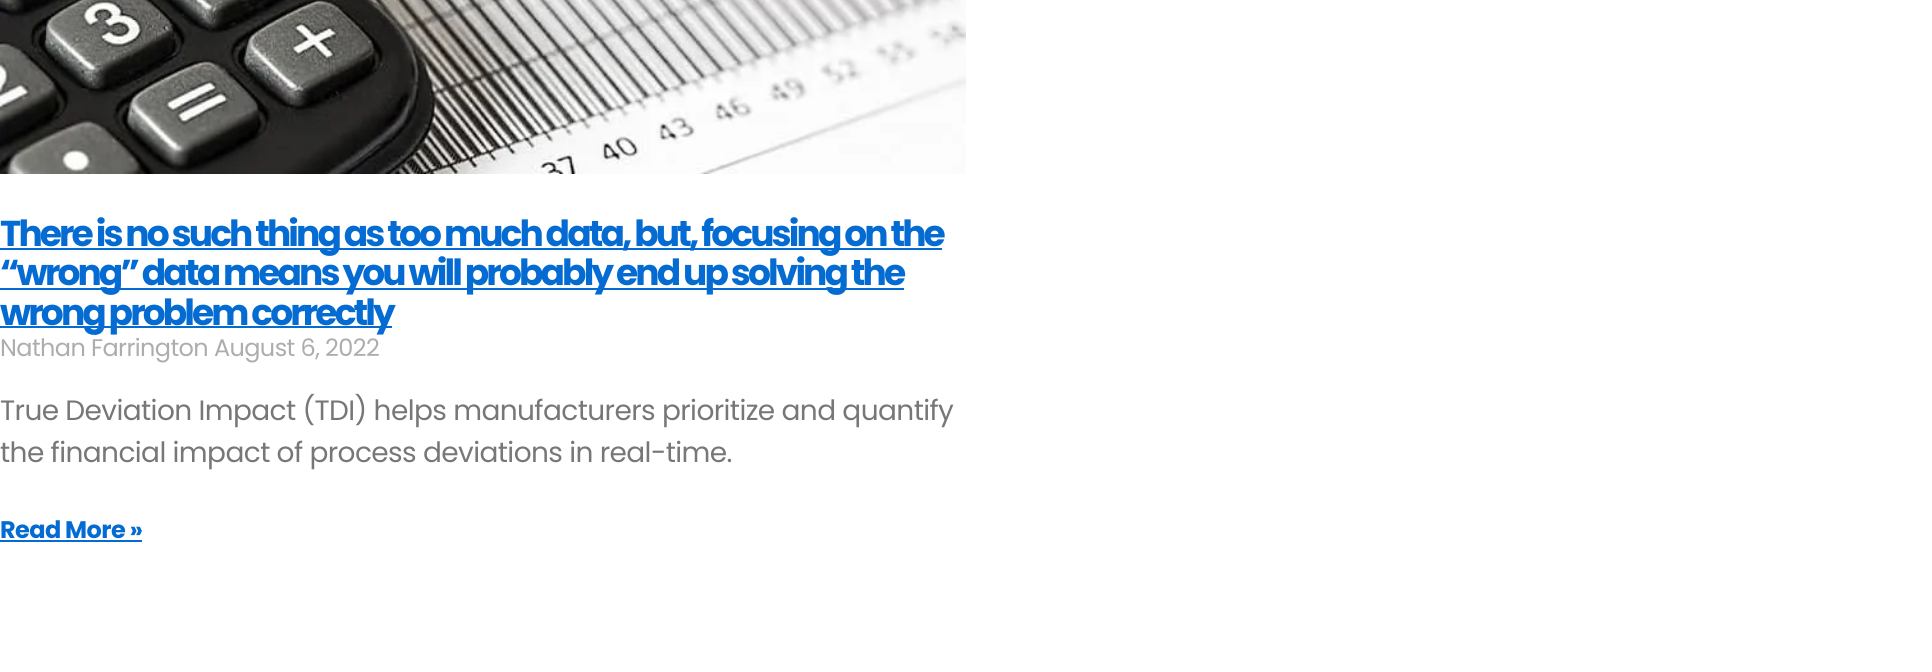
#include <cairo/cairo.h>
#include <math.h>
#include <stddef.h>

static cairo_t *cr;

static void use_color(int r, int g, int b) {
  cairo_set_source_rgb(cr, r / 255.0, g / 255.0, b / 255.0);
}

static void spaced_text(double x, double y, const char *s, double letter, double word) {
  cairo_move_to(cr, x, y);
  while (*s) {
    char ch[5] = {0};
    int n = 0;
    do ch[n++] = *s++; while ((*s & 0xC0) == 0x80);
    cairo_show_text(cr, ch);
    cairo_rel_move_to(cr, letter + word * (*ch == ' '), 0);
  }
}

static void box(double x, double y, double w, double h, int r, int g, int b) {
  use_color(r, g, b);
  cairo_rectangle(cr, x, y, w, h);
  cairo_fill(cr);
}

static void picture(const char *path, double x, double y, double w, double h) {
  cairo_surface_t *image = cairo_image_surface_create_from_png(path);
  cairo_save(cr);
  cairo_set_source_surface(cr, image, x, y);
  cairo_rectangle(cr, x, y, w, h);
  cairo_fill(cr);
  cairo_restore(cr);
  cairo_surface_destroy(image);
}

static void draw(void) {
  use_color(255, 255, 255);
  cairo_paint(cr);
  picture("img_01.png", 0, 0, 966, 174);
  box(0, 248, 942, 2, 4, 107, 210);
  box(0, 288, 904, 2, 4, 107, 210);
  box(0, 326, 392, 2, 4, 107, 210);
  box(0, 540, 142, 2, 4, 107, 210);
  cairo_select_font_face(cr, "Poppins", CAIRO_FONT_SLANT_NORMAL, CAIRO_FONT_WEIGHT_BOLD);
  cairo_set_font_size(cr, 36);
  spaced_text(0, 246, "There is no such thing as too much data, but, focusing on the", -2.88, 0);
  spaced_text(0, 285, "“wrong” data means you will probably end up solving the", -2.88, 0);
  spaced_text(0, 325, "wrong problem correctly", -2.88, 0);
  cairo_select_font_face(cr, "Poppins", CAIRO_FONT_SLANT_NORMAL, CAIRO_FONT_WEIGHT_NORMAL);
  cairo_set_font_size(cr, 24);
  use_color(173, 173, 173);
  spaced_text(0, 356, "Nathan Farrington August 6, 2022", -0.6, 0);
  cairo_set_font_size(cr, 28);
  use_color(119, 119, 119);
  spaced_text(0, 420, "True Deviation Impact (TDI) helps manufacturers prioritize and quantify", -0.6, 0);
  spaced_text(0, 462, "the financial impact of process deviations in real-time.", -0.6, 0);
  cairo_select_font_face(cr, "Poppins", CAIRO_FONT_SLANT_NORMAL, CAIRO_FONT_WEIGHT_BOLD);
  cairo_set_font_size(cr, 24);
  use_color(4, 107, 210);
  spaced_text(0, 538, "Read More »", -0.6, 0);
}

int main(void) {
  cairo_surface_t *surface = cairo_image_surface_create(CAIRO_FORMAT_RGB24, 1932, 672);
  cr = cairo_create(surface);
  cairo_font_options_t *options = cairo_font_options_create();
  cairo_font_options_set_hint_metrics(options, CAIRO_HINT_METRICS_OFF);
  cairo_font_options_set_hint_style(options, CAIRO_HINT_STYLE_NONE);
  cairo_set_font_options(cr, options);
  cairo_set_miter_limit(cr, 4);
  draw();
  cairo_surface_write_to_png(surface, "out.png");
  cairo_font_options_destroy(options);
  cairo_destroy(cr);
  cairo_surface_destroy(surface);
  return 0;
}
